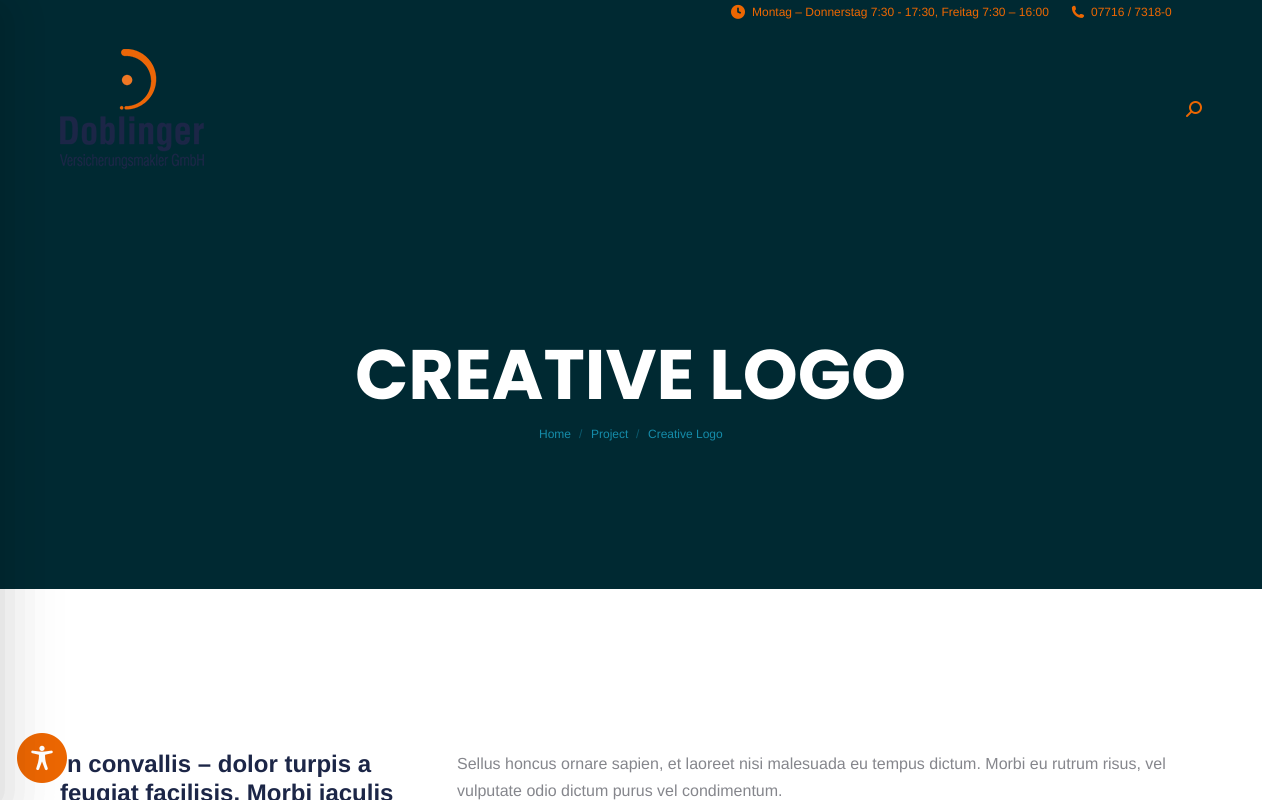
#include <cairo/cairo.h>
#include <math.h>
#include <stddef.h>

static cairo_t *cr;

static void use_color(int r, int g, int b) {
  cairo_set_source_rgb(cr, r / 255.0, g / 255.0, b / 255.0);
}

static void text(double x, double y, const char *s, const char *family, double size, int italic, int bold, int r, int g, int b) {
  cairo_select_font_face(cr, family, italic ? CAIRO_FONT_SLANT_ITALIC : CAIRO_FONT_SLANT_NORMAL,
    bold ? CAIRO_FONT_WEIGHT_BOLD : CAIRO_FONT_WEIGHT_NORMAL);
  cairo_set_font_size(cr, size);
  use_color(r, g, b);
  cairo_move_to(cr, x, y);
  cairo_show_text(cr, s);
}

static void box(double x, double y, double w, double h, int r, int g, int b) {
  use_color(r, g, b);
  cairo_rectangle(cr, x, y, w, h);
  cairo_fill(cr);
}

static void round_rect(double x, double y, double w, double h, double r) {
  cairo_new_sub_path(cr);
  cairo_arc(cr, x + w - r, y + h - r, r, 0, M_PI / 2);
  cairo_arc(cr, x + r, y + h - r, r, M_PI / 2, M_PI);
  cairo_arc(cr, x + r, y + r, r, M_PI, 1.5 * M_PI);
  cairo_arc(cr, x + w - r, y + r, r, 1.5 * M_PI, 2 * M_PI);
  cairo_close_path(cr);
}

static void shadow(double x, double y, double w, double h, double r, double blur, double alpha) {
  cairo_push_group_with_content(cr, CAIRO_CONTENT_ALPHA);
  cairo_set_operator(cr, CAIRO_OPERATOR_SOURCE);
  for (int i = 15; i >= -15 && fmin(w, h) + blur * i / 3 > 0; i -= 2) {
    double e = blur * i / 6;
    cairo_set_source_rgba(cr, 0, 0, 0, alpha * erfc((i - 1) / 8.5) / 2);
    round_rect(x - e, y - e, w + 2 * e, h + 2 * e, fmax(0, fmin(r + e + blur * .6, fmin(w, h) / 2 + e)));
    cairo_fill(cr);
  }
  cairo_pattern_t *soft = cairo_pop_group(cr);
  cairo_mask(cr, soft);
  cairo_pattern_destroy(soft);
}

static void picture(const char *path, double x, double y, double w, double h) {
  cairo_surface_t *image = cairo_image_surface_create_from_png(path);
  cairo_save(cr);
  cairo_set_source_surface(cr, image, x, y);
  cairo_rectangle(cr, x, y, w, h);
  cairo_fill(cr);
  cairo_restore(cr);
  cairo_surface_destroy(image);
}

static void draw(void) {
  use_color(255, 255, 255);
  cairo_paint(cr);
  box(0, 0, 1262, 589, 0, 41, 50);
  picture("img_03.png", 60, 49, 144, 120);
  use_color(236, 102, 1);
  cairo_arc(cr, 42, 758, 25, 0, 2 * M_PI);
  cairo_fill(cr);
  picture("img_05.png", 31, 745, 22, 26);
  use_color(0, 0, 0);
  shadow(-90, 10, 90, 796, 0, 30, 0.2);
  picture("img_01.png", 731, 4, 14, 15);
  picture("img_02.png", 1071, 5, 14, 13);
  picture("img_04.png", 1186, 101, 16, 16);
  text(752, 16, "Montag – Donnerstag 7:30 - 17:30, Freitag 7:30 – 16:00", "Liberation Sans", 12, 0, 0, 236, 102, 1);
  text(1091, 16, "07716 / 7318-0", "Liberation Sans", 12, 0, 0, 236, 102, 1);
  text(355, 399, "CREATIVE LOGO", "Poppins", 70, 0, 1, 255, 255, 255);
  text(539, 438, "Home", "Liberation Sans", 12, 0, 0, 20, 139, 169);
  text(579, 438, "/", "Liberation Sans", 12, 0, 0, 10, 90, 110);
  text(591, 438, "Project", "Liberation Sans", 12, 0, 0, 20, 139, 169);
  text(636, 438, "/", "Liberation Sans", 12, 0, 0, 10, 90, 110);
  text(648, 438, "Creative Logo", "Liberation Sans", 12, 0, 0, 20, 139, 169);
  text(67, 772, "n convallis – dolor turpis a", "Liberation Sans", 24, 0, 1, 28, 38, 71);
  text(60, 801, "feugiat facilisis. Morbi iaculis", "Liberation Sans", 24, 0, 1, 28, 38, 71);
  text(457, 769, "Sellus honcus ornare sapien, et laoreet nisi malesuada eu tempus dictum. Morbi eu rutrum risus, vel", "Liberation Sans", 16, 0, 0, 133, 134, 140);
  text(457, 796, "vulputate odio dictum purus vel condimentum.", "Liberation Sans", 16, 0, 0, 133, 134, 140);
}

int main(void) {
  cairo_surface_t *surface = cairo_image_surface_create(CAIRO_FORMAT_RGB24, 1262, 800);
  cr = cairo_create(surface);
  cairo_font_options_t *options = cairo_font_options_create();
  cairo_font_options_set_hint_metrics(options, CAIRO_HINT_METRICS_OFF);
  cairo_font_options_set_hint_style(options, CAIRO_HINT_STYLE_NONE);
  cairo_set_font_options(cr, options);
  cairo_set_miter_limit(cr, 4);
  draw();
  cairo_surface_write_to_png(surface, "out.png");
  cairo_font_options_destroy(options);
  cairo_destroy(cr);
  cairo_surface_destroy(surface);
  return 0;
}
